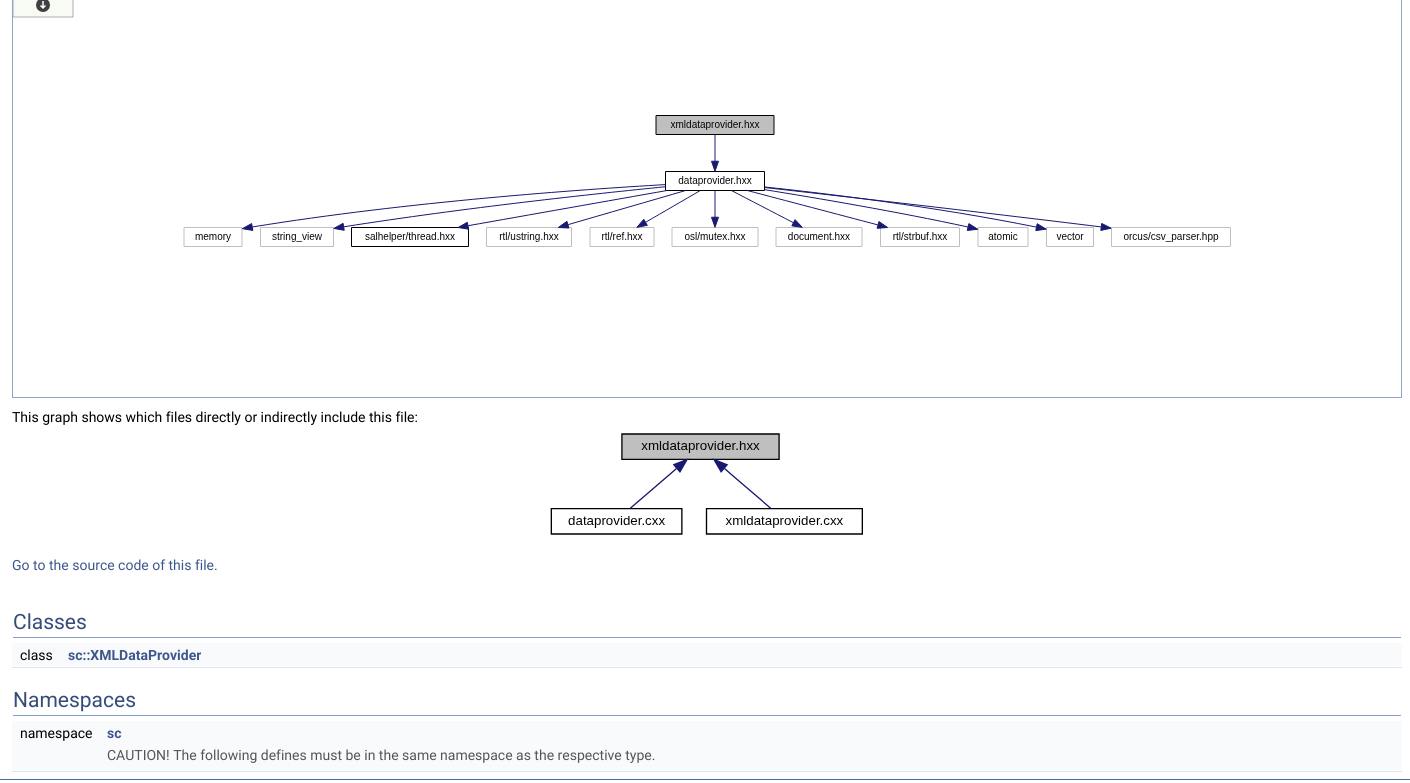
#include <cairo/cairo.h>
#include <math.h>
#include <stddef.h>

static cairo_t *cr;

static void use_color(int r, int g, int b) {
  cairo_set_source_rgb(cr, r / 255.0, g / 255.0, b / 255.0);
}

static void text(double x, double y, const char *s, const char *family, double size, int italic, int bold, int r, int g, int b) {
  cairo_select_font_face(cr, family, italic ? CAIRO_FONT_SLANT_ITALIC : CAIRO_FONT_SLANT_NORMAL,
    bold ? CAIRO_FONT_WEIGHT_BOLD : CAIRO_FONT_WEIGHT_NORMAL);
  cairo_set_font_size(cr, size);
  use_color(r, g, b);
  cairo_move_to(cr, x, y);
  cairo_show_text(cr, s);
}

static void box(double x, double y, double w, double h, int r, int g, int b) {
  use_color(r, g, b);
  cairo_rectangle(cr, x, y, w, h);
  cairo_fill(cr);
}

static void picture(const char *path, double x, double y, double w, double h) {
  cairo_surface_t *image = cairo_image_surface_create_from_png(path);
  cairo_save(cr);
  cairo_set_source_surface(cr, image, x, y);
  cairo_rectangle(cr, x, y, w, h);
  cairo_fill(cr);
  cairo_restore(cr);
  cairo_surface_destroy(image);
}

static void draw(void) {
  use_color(255, 255, 255);
  cairo_paint(cr);
  cairo_rectangle(cr, 12.5, -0.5, 1389, 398);
  use_color(144, 165, 206);
  cairo_set_line_width(cr, 1);
  cairo_stroke(cr);
  picture("img_01.png", 13, 0, 1218, 247);
  picture("img_02.png", 550, 433, 313, 102);
  box(13, 637, 1388, 1, 135, 158, 203);
  box(12, 643, 1390, 23, 249, 250, 252);
  box(12, 667, 1390, 1, 222, 228, 240);
  box(13, 715, 1388, 1, 135, 158, 203);
  box(12, 721, 1390, 23, 249, 250, 252);
  box(12, 744, 1390, 26, 249, 250, 252);
  box(12, 771, 1390, 1, 222, 228, 240);
  box(0, 779, 1410, 1, 74, 106, 170);
  text(12, 422, "This graph shows which files directly or indirectly include this file:", "Roboto", 14, 0, 0, 0, 0, 0);
  text(12, 570, "Go to the source code of this file.", "Roboto", 14, 0, 0, 61, 87, 140);
  text(13, 629, "Classes", "Roboto", 21, 0, 0, 53, 76, 123);
  text(20, 660, "class", "Roboto", 14, 0, 0, 0, 0, 0);
  text(68, 660, "sc::XMLDataProvider", "Roboto", 14, 0, 1, 61, 87, 140);
  text(13, 707, "Namespaces", "Roboto", 21, 0, 0, 53, 76, 123);
  text(20, 738, "namespace", "Roboto", 14, 0, 0, 0, 0, 0);
  text(107, 738, "sc", "Roboto", 14, 0, 1, 61, 87, 140);
  text(107, 760, "CAUTION! The following defines must be in the same namespace as the respective type.", "Roboto", 14, 0, 0, 85, 85, 85);
}

int main(void) {
  cairo_surface_t *surface = cairo_image_surface_create(CAIRO_FORMAT_RGB24, 1410, 783);
  cr = cairo_create(surface);
  cairo_font_options_t *options = cairo_font_options_create();
  cairo_font_options_set_hint_metrics(options, CAIRO_HINT_METRICS_OFF);
  cairo_font_options_set_hint_style(options, CAIRO_HINT_STYLE_NONE);
  cairo_set_font_options(cr, options);
  cairo_set_miter_limit(cr, 4);
  draw();
  cairo_surface_write_to_png(surface, "out.png");
  cairo_font_options_destroy(options);
  cairo_destroy(cr);
  cairo_surface_destroy(surface);
  return 0;
}
